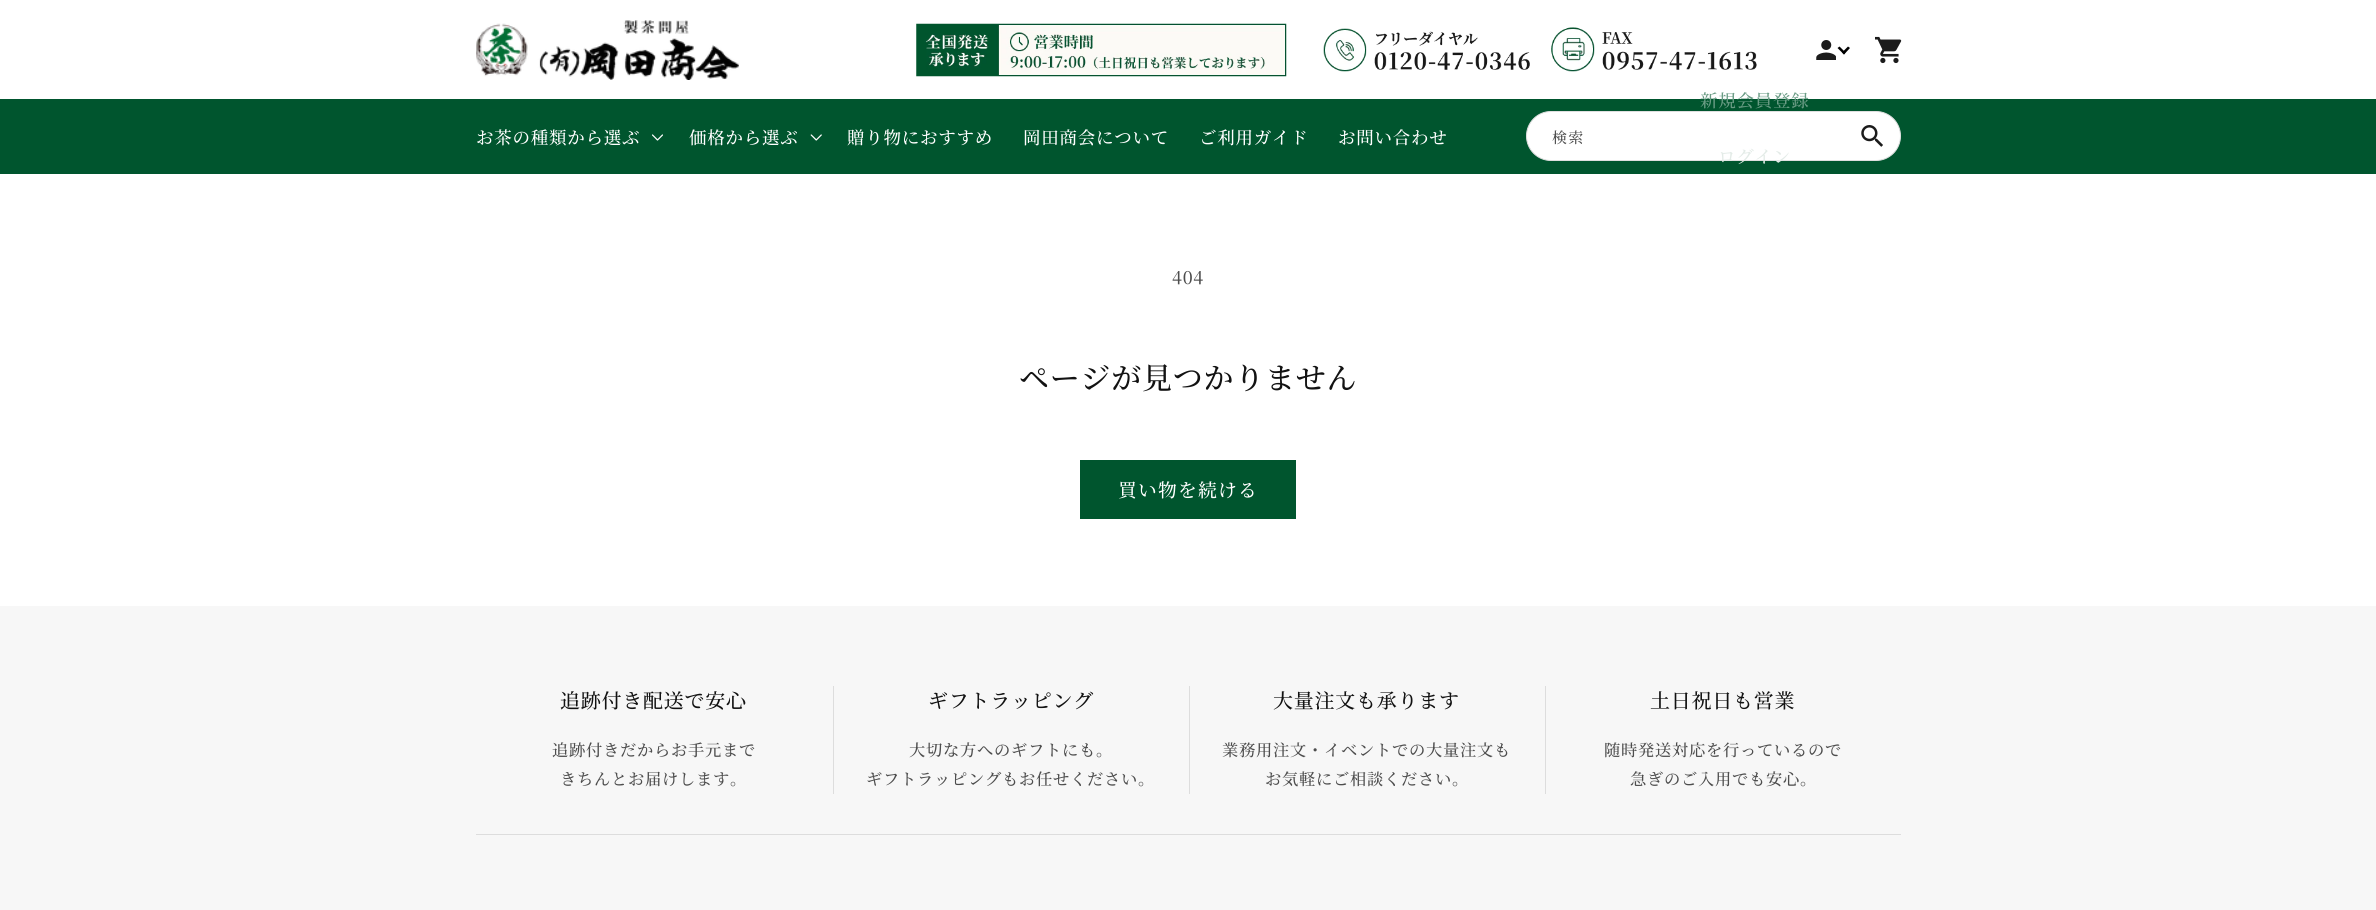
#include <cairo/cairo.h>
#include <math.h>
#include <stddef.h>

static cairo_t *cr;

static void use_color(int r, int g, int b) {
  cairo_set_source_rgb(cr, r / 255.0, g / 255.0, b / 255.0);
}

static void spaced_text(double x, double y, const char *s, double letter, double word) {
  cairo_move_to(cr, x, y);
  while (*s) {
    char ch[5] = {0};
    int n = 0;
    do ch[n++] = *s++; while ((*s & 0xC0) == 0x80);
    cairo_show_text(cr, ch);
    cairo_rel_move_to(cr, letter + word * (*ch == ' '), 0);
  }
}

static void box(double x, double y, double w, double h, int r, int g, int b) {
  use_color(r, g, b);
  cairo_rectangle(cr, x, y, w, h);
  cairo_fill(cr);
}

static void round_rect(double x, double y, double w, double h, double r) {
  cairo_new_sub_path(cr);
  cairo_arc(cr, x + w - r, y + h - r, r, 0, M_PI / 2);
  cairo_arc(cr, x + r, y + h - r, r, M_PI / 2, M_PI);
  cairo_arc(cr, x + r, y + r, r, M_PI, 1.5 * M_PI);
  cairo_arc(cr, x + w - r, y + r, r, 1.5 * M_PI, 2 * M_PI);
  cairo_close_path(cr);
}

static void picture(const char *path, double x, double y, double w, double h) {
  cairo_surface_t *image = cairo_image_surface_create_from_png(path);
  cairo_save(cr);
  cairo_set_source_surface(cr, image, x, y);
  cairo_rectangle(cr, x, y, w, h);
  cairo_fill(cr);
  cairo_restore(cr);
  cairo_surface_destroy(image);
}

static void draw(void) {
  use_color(255, 255, 255);
  cairo_paint(cr);
  box(0, 99, 2376, 75, 0, 85, 46);
  picture("img_01.png", 652, 134, 11, 7);
  picture("img_02.png", 810, 134, 12, 7);
  use_color(255, 255, 255);
  round_rect(1526.5, 111.5, 374, 49, 24.5);
  cairo_fill_preserve(cr);
  use_color(223, 223, 223);
  cairo_set_line_width(cr, 1);
  cairo_stroke(cr);
  picture("img_03.png", 1861, 125, 22, 22);
  picture("img_04.png", 476, 20, 263, 60);
  picture("img_05.png", 916, 23, 371, 54);
  picture("img_06.png", 1323, 28, 207, 44);
  picture("img_07.png", 1551, 27, 206, 45);
  picture("img_08.png", 1875, 36, 27, 28);
  picture("img_09.png", 1816, 40, 20, 20);
  use_color(0, 0, 0);
  cairo_new_path(cr);
  cairo_move_to(cr, 1850, 48);
  cairo_line_to(cr, 1844, 54.5);
  cairo_line_to(cr, 1842, 52.5);
  cairo_line_to(cr, 1848, 46.5);
  cairo_close_path(cr);
  cairo_fill(cr);
  cairo_new_path(cr);
  cairo_move_to(cr, 1845.5, 52.5);
  cairo_line_to(cr, 1844, 54.5);
  cairo_line_to(cr, 1837.5, 48);
  cairo_line_to(cr, 1839.5, 46.5);
  cairo_close_path(cr);
  cairo_fill(cr);
  box(1080, 460, 216, 59, 0, 85, 46);
  box(0, 606, 2376, 304, 247, 247, 247);
  box(476, 834, 1425, 1, 221, 221, 221);
  box(833, 686, 1, 108, 221, 221, 221);
  box(1189, 686, 1, 108, 221, 221, 221);
  box(1545, 686, 1, 108, 221, 221, 221);
  cairo_select_font_face(cr, "Noto Serif JP Medium", CAIRO_FONT_SLANT_NORMAL, CAIRO_FONT_WEIGHT_NORMAL);
  cairo_set_font_size(cr, 17.5);
  use_color(255, 255, 255);
  spaced_text(476, 144, "お茶の種類から選ぶ", 0.75, 0);
  spaced_text(689, 144, "価格から選ぶ", 0.75, 0);
  spaced_text(847, 144, "贈り物におすすめ", 0.75, 0);
  spaced_text(1023, 144, "岡田商会について", 0.75, 0);
  spaced_text(1199, 144, "ご利用ガイド", 0.75, 0);
  spaced_text(1338, 144, "お問い合わせ", 0.75, 0);
  cairo_set_font_size(cr, 15);
  use_color(77, 77, 77);
  spaced_text(1552, 143, "検索", 1.25, 0);
  cairo_set_font_size(cr, 17.5);
  use_color(105, 155, 132);
  spaced_text(1700, 107, "新規会員登録", 0.75, 0);
  use_color(227, 235, 231);
  spaced_text(1718, 163, "ログイン", 0.75, 0);
  use_color(77, 77, 77);
  spaced_text(1172, 284, "404", 0.75, 0);
  cairo_set_font_size(cr, 30);
  use_color(18, 18, 18);
  spaced_text(1019, 389, "ページが見つかりません", 0.75, 0);
  cairo_set_font_size(cr, 18.75);
  use_color(255, 255, 255);
  spaced_text(1118, 497, "買い物を続ける", 1.25, 0);
  cairo_set_font_size(cr, 20);
  use_color(18, 18, 18);
  spaced_text(560, 708, "追跡付き配送で安心", 0.75, 0);
  cairo_set_font_size(cr, 16.25);
  use_color(77, 77, 77);
  spaced_text(552, 756, "追跡付きだからお手元まで", 0.75, 0);
  spaced_text(560, 785, "きちんとお届けします。", 0.75, 0);
  cairo_set_font_size(cr, 20);
  use_color(18, 18, 18);
  spaced_text(928, 708, "ギフトラッピング", 0.75, 0);
  cairo_set_font_size(cr, 16.25);
  use_color(77, 77, 77);
  spaced_text(909, 756, "大切な方へのギフトにも。", 0.75, 0);
  spaced_text(866, 785, "ギフトラッピングもお任せください。", 0.75, 0);
  cairo_set_font_size(cr, 20);
  use_color(18, 18, 18);
  spaced_text(1273, 708, "大量注文も承ります", 0.75, 0);
  cairo_set_font_size(cr, 16.25);
  use_color(77, 77, 77);
  spaced_text(1222, 756, "業務用注文・イベントでの大量注文も", 0.75, 0);
  spaced_text(1265, 785, "お気軽にご相談ください。", 0.75, 0);
  cairo_set_font_size(cr, 20);
  use_color(18, 18, 18);
  spaced_text(1650, 708, "土日祝日も営業", 0.75, 0);
  cairo_set_font_size(cr, 16.25);
  use_color(77, 77, 77);
  spaced_text(1604, 756, "随時発送対応を行っているので", 0.75, 0);
  spaced_text(1630, 785, "急ぎのご入用でも安心。", 0.75, 0);
}

int main(void) {
  cairo_surface_t *surface = cairo_image_surface_create(CAIRO_FORMAT_RGB24, 2376, 910);
  cr = cairo_create(surface);
  cairo_font_options_t *options = cairo_font_options_create();
  cairo_font_options_set_hint_metrics(options, CAIRO_HINT_METRICS_OFF);
  cairo_font_options_set_hint_style(options, CAIRO_HINT_STYLE_NONE);
  cairo_set_font_options(cr, options);
  cairo_set_miter_limit(cr, 4);
  draw();
  cairo_surface_write_to_png(surface, "out.png");
  cairo_font_options_destroy(options);
  cairo_destroy(cr);
  cairo_surface_destroy(surface);
  return 0;
}
